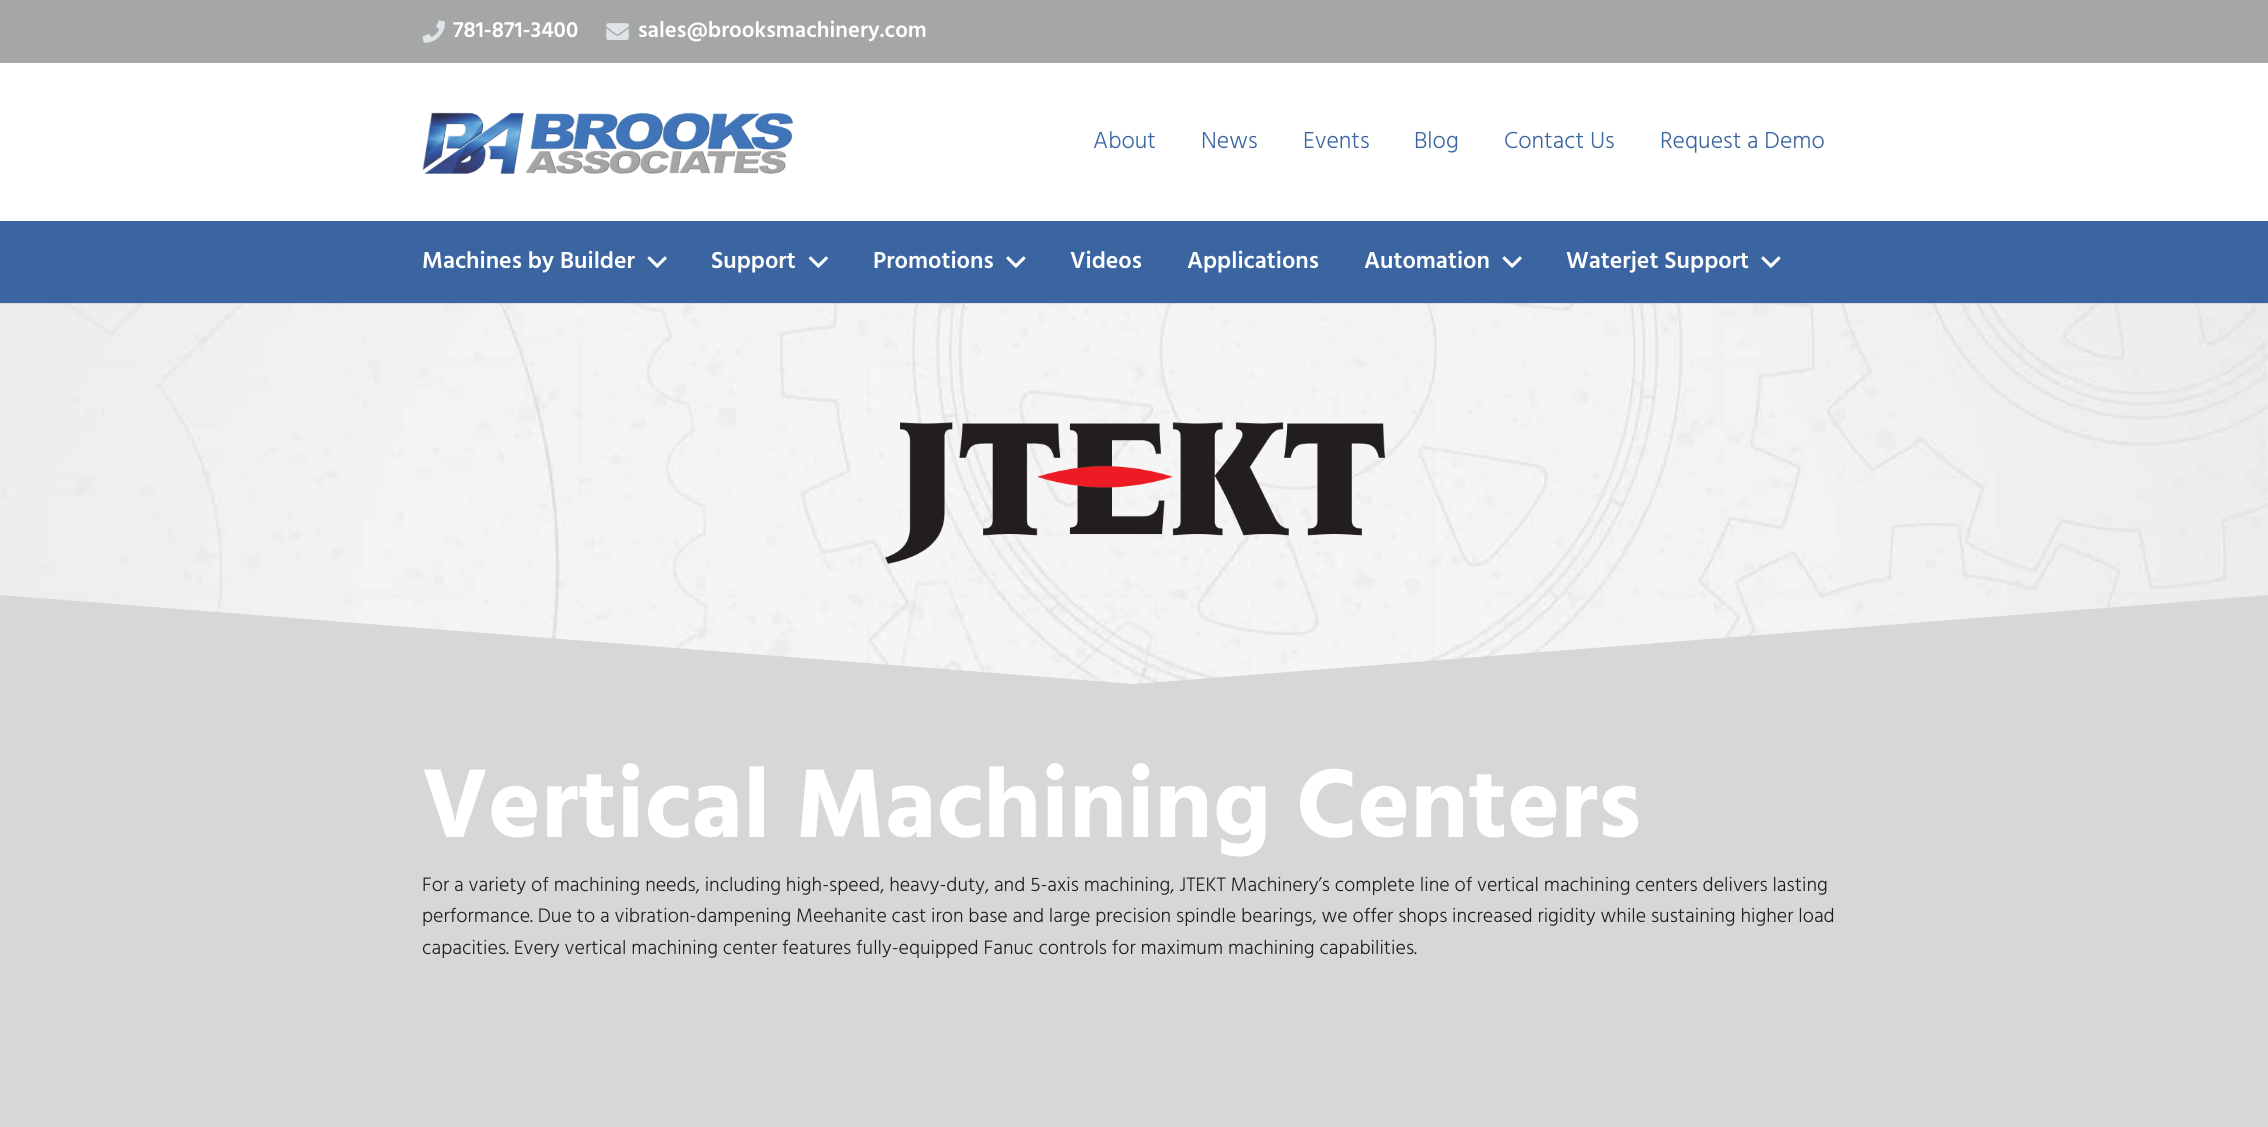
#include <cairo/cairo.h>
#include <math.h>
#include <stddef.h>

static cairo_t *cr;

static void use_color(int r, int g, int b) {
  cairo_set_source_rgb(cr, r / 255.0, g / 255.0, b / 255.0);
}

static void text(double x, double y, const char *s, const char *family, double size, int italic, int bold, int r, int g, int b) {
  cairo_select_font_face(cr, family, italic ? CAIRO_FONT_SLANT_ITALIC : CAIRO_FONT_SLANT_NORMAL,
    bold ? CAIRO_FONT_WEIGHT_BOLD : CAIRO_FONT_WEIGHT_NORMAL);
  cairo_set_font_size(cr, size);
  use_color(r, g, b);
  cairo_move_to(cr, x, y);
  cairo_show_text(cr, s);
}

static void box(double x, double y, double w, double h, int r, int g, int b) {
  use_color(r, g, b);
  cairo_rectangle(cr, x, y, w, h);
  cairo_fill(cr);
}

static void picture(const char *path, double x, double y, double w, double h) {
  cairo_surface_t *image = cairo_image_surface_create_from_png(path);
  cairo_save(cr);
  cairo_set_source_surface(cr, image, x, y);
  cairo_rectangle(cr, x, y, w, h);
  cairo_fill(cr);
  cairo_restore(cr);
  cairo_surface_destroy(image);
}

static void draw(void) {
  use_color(215, 215, 215);
  cairo_paint(cr);
  box(0, 0, 2268, 63, 165, 166, 166);
  picture("img_01.png", 422, 20, 23, 23);
  picture("img_02.png", 606, 23, 23, 17);
  box(0, 63, 2268, 158, 255, 255, 255);
  picture("img_03.png", 422, 112, 371, 62);
  picture("img_07.png", 0, 303, 2268, 381);
  cairo_set_source_rgba(cr, 0, 0, 0, 0.08);
  cairo_new_path(cr);
  cairo_move_to(cr, 0, 302);
  cairo_line_to(cr, 0, 304);
  cairo_line_to(cr, 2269, 304);
  cairo_line_to(cr, 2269, 223);
  cairo_line_to(cr, 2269, 302);
  cairo_close_path(cr);
  cairo_fill(cr);
  box(0, 221, 2268, 82, 58, 101, 160);
  picture("img_04.png", 647, 256, 20, 12);
  picture("img_05.png", 808, 256, 20, 12);
  picture("img_06.png", 1006, 256, 20, 12);
  picture("img_04.png", 1502, 256, 20, 12);
  picture("img_06.png", 1761, 256, 20, 12);
  picture("img_08.png", 885, 422, 500, 142);
  use_color(215, 215, 215);
  cairo_new_path(cr);
  cairo_move_to(cr, 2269, 685);
  cairo_line_to(cr, 0, 685);
  cairo_line_to(cr, 0, 595);
  cairo_line_to(cr, 1134, 684);
  cairo_line_to(cr, 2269, 595);
  cairo_close_path(cr);
  cairo_fill(cr);
  text(453, 37, "781-871-3400", "Hind SemiBold", 22.5, 0, 0, 255, 255, 255);
  text(638, 37, "sales@brooksmachinery.com", "Hind SemiBold", 22.5, 0, 0, 255, 255, 255);
  text(1093, 148, "About", "Hind Light", 23.75, 0, 0, 58, 101, 160);
  text(1201, 148, "News", "Hind Light", 23.75, 0, 0, 58, 101, 160);
  text(1303, 148, "Events", "Hind Light", 23.75, 0, 0, 58, 101, 160);
  text(1414, 148, "Blog", "Hind Light", 23.75, 0, 0, 58, 101, 160);
  text(1504, 148, "Contact Us", "Hind Light", 23.75, 0, 0, 58, 101, 160);
  text(1660, 148, "Request a Demo", "Hind Light", 23.75, 0, 0, 58, 101, 160);
  text(422, 268, "Machines by Builder", "Hind SemiBold", 23.75, 0, 0, 255, 255, 255);
  text(711, 268, "Support", "Hind SemiBold", 23.75, 0, 0, 255, 255, 255);
  text(873, 268, "Promotions", "Hind SemiBold", 23.75, 0, 0, 255, 255, 255);
  text(1070, 268, "Videos", "Hind SemiBold", 23.75, 0, 0, 255, 255, 255);
  text(1187, 268, "Applications", "Hind SemiBold", 23.75, 0, 0, 255, 255, 255);
  text(1364, 268, "Automation", "Hind SemiBold", 23.75, 0, 0, 255, 255, 255);
  text(1566, 268, "Waterjet Support", "Hind SemiBold", 23.75, 0, 0, 255, 255, 255);
  text(422, 837, "Vertical Machining Centers", "Hind", 100, 0, 1, 255, 255, 255);
  text(422, 891, "For a variety of machining needs, including high-speed, heavy-duty, and 5-axis machining, JTEKT Machinery’s complete line of vertical machining centers delivers lasting", "Hind Light", 20, 0, 0, 34, 31, 32);
  text(422, 922, "performance. Due to a vibration-dampening Meehanite cast iron base and large precision spindle bearings, we offer shops increased rigidity while sustaining higher load", "Hind Light", 20, 0, 0, 34, 31, 32);
  text(422, 954, "capacities. Every vertical machining center features fully-equipped Fanuc controls for maximum machining capabilities.", "Hind Light", 20, 0, 0, 34, 31, 32);
}

int main(void) {
  cairo_surface_t *surface = cairo_image_surface_create(CAIRO_FORMAT_RGB24, 2268, 1127);
  cr = cairo_create(surface);
  cairo_font_options_t *options = cairo_font_options_create();
  cairo_font_options_set_hint_metrics(options, CAIRO_HINT_METRICS_OFF);
  cairo_font_options_set_hint_style(options, CAIRO_HINT_STYLE_NONE);
  cairo_set_font_options(cr, options);
  cairo_set_miter_limit(cr, 4);
  draw();
  cairo_surface_write_to_png(surface, "out.png");
  cairo_font_options_destroy(options);
  cairo_destroy(cr);
  cairo_surface_destroy(surface);
  return 0;
}
